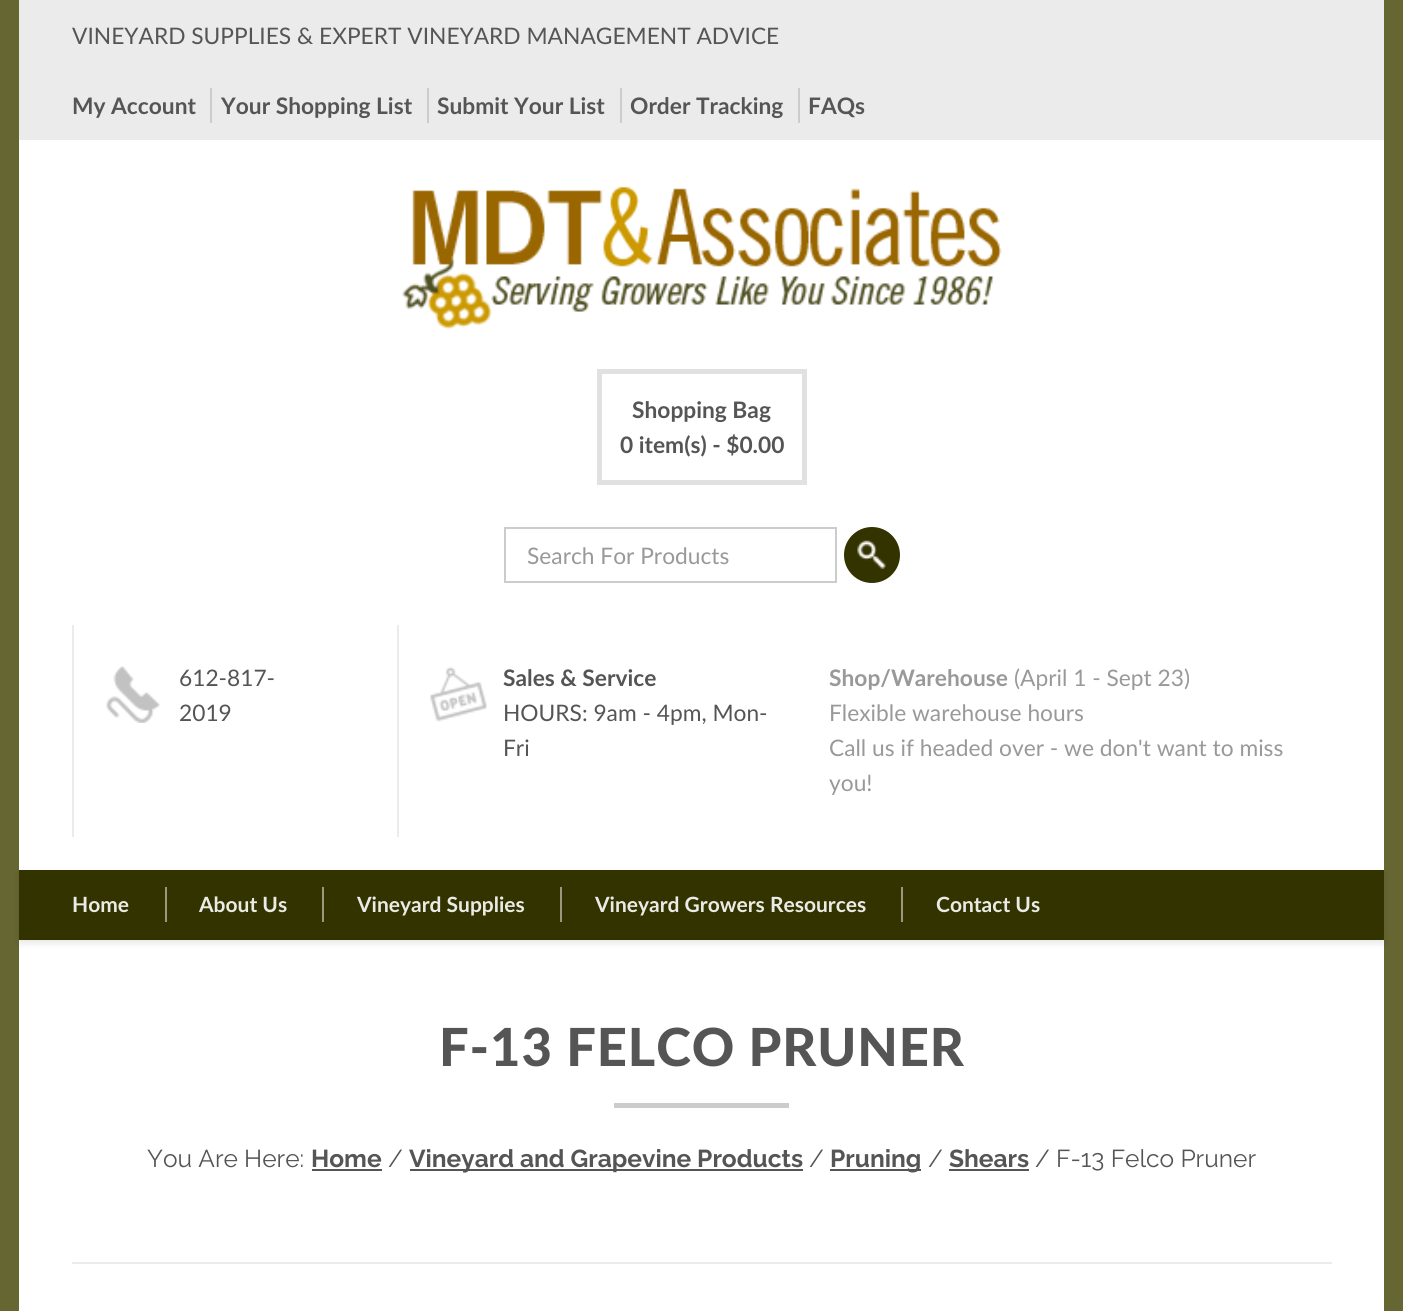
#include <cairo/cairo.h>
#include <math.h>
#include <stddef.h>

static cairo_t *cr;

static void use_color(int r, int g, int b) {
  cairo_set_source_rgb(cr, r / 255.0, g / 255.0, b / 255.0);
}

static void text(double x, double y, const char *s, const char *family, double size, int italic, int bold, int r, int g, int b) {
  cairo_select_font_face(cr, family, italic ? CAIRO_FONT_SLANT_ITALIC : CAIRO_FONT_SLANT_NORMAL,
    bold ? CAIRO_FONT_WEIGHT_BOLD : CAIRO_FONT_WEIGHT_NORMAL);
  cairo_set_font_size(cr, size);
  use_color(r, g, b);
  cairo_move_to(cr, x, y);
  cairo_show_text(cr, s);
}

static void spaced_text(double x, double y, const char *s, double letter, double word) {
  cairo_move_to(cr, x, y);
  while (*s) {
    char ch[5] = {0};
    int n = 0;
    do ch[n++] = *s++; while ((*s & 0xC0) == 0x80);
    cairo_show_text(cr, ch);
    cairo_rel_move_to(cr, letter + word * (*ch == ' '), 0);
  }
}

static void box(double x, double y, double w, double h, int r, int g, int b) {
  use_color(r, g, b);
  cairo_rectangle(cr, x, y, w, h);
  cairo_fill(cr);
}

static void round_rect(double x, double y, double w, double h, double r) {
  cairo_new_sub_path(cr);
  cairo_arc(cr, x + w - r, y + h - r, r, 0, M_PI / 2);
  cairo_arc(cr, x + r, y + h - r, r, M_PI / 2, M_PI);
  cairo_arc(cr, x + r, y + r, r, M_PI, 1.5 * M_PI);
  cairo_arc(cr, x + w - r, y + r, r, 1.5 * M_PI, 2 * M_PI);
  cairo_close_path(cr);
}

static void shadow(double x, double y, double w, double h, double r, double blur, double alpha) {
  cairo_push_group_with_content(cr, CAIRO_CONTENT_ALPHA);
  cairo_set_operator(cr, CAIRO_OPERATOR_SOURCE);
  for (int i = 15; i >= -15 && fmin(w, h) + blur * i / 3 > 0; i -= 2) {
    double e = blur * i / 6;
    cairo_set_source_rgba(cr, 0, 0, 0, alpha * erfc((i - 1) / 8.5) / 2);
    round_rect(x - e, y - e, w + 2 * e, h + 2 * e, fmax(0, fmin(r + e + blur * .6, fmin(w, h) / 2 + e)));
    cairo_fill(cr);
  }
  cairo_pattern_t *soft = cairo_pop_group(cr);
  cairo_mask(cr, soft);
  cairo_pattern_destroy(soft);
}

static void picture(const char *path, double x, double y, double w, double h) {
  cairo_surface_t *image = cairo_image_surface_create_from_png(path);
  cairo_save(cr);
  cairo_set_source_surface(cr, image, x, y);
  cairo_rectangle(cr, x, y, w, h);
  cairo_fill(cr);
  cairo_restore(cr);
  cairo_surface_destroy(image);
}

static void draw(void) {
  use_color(102, 102, 51);
  cairo_paint(cr);
  box(19, 140, 1365, 730, 255, 255, 255);
  box(19, 0, 1365, 140, 235, 235, 235);
  box(210, 88, 2, 35, 204, 204, 204);
  box(427, 88, 2, 35, 204, 204, 204);
  box(620, 88, 2, 35, 204, 204, 204);
  box(798, 88, 2, 35, 204, 204, 204);
  picture("img_01.png", 402, 186, 600, 144);
  cairo_rectangle(cr, 599.5, 371.5, 205, 111);
  use_color(225, 225, 225);
  cairo_set_line_width(cr, 5);
  cairo_stroke(cr);
  cairo_rectangle(cr, 505, 528, 331, 54);
  use_color(204, 204, 204);
  cairo_set_line_width(cr, 2);
  cairo_stroke(cr);
  use_color(51, 51, 0);
  cairo_arc(cr, 872, 555, 28, 0, 2 * M_PI);
  cairo_fill(cr);
  picture("img_02.png", 857, 540, 29, 29);
  picture("img_03.png", 106, 666, 54, 57);
  box(72, 625, 2, 212, 235, 235, 235);
  picture("img_04.png", 430, 666, 57, 56);
  box(397, 625, 2, 212, 235, 235, 235);
  box(19, 940, 1365, 371, 255, 255, 255);
  use_color(0, 0, 0);
  shadow(19, 873, 1365, 70, 0, 3.5, 0.1);
  box(19, 870, 1365, 70, 51, 51, 0);
  box(165, 887, 2, 35, 153, 153, 128);
  box(322, 887, 2, 35, 153, 153, 128);
  box(560, 887, 2, 35, 153, 153, 128);
  box(901, 887, 2, 35, 153, 153, 128);
  box(614, 1103, 175, 5, 204, 204, 204);
  box(312, 1169, 70, 2, 85, 85, 85);
  box(410, 1169, 393, 2, 85, 85, 85);
  box(830, 1169, 91, 2, 85, 85, 85);
  box(949, 1169, 80, 2, 85, 85, 85);
  box(72, 1262, 1260, 2, 235, 235, 235);
  text(72, 44, "VINEYARD SUPPLIES & EXPERT VINEYARD MANAGEMENT ADVICE", "Lato", 22.75, 0, 0, 85, 85, 85);
  text(72, 114, "My Account", "Lato", 22.75, 0, 1, 85, 85, 85);
  text(221, 114, "Your Shopping List", "Lato", 22.75, 0, 1, 85, 85, 85);
  text(437, 114, "Submit Your List", "Lato", 22.75, 0, 1, 85, 85, 85);
  text(630, 114, "Order Tracking", "Lato", 22.75, 0, 1, 85, 85, 85);
  text(808, 114, "FAQs", "Lato", 22.75, 0, 1, 85, 85, 85);
  text(632, 418, "Shopping Bag", "Lato", 22.75, 0, 1, 85, 85, 85);
  text(620, 453, "0 item(s) - $0.00", "Lato", 22.75, 0, 1, 85, 85, 85);
  text(527, 564, "Search For Products", "Lato", 22.75, 0, 0, 153, 153, 153);
  text(179, 686, "612-817-", "Lato", 22.75, 0, 0, 85, 85, 85);
  text(179, 721, "2019", "Lato", 22.75, 0, 0, 85, 85, 85);
  text(503, 686, "Sales & Service", "Lato", 22.75, 0, 1, 85, 85, 85);
  text(503, 721, "HOURS: 9am - 4pm, Mon-", "Lato", 22.75, 0, 0, 85, 85, 85);
  text(503, 756, "Fri", "Lato", 22.75, 0, 0, 85, 85, 85);
  text(829, 686, "Shop/Warehouse", "Lato", 22.75, 0, 1, 153, 153, 153);
  text(1014, 686, "(April 1 - Sept 23)", "Lato", 22.75, 0, 0, 153, 153, 153);
  text(829, 721, "Flexible warehouse hours", "Lato", 22.75, 0, 0, 153, 153, 153);
  text(829, 756, "Call us if headed over - we don't want to miss", "Lato", 22.75, 0, 0, 153, 153, 153);
  text(829, 791, "you!", "Lato", 22.75, 0, 0, 153, 153, 153);
  text(72, 912, "Home", "Lato", 21, 0, 1, 235, 235, 230);
  text(199, 912, "About Us", "Lato", 21, 0, 1, 235, 235, 230);
  text(357, 912, "Vineyard Supplies", "Lato", 21, 0, 1, 235, 235, 230);
  text(595, 912, "Vineyard Growers Resources", "Lato", 21, 0, 1, 235, 235, 230);
  text(936, 912, "Contact Us", "Lato", 21, 0, 1, 235, 235, 230);
  cairo_select_font_face(cr, "Lato Black", CAIRO_FONT_SLANT_NORMAL, CAIRO_FONT_WEIGHT_NORMAL);
  cairo_set_font_size(cr, 52.5);
  use_color(85, 85, 85);
  spaced_text(439, 1066, "F-13 FELCO PRUNER", 0.9, 0);
  text(147, 1167, "You Are Here:", "Raleway", 24.5, 0, 0, 85, 85, 85);
  text(311, 1167, "Home", "Raleway", 24.5, 0, 1, 85, 85, 85);
  text(388, 1167, "/", "Raleway", 24.5, 0, 0, 85, 85, 85);
  text(409, 1167, "Vineyard and Grapevine Products", "Raleway", 24.5, 0, 1, 85, 85, 85);
  text(809, 1167, "/", "Raleway", 24.5, 0, 0, 85, 85, 85);
  text(830, 1167, "Pruning", "Raleway", 24.5, 0, 1, 85, 85, 85);
  text(928, 1167, "/", "Raleway", 24.5, 0, 0, 85, 85, 85);
  text(949, 1167, "Shears", "Raleway", 24.5, 0, 1, 85, 85, 85);
  text(1035, 1167, "/ F-13 Felco Pruner", "Raleway", 24.5, 0, 0, 85, 85, 85);
}

int main(void) {
  cairo_surface_t *surface = cairo_image_surface_create(CAIRO_FORMAT_RGB24, 1403, 1311);
  cr = cairo_create(surface);
  cairo_font_options_t *options = cairo_font_options_create();
  cairo_font_options_set_hint_metrics(options, CAIRO_HINT_METRICS_OFF);
  cairo_font_options_set_hint_style(options, CAIRO_HINT_STYLE_NONE);
  cairo_set_font_options(cr, options);
  cairo_set_miter_limit(cr, 4);
  draw();
  cairo_surface_write_to_png(surface, "out.png");
  cairo_font_options_destroy(options);
  cairo_destroy(cr);
  cairo_surface_destroy(surface);
  return 0;
}
